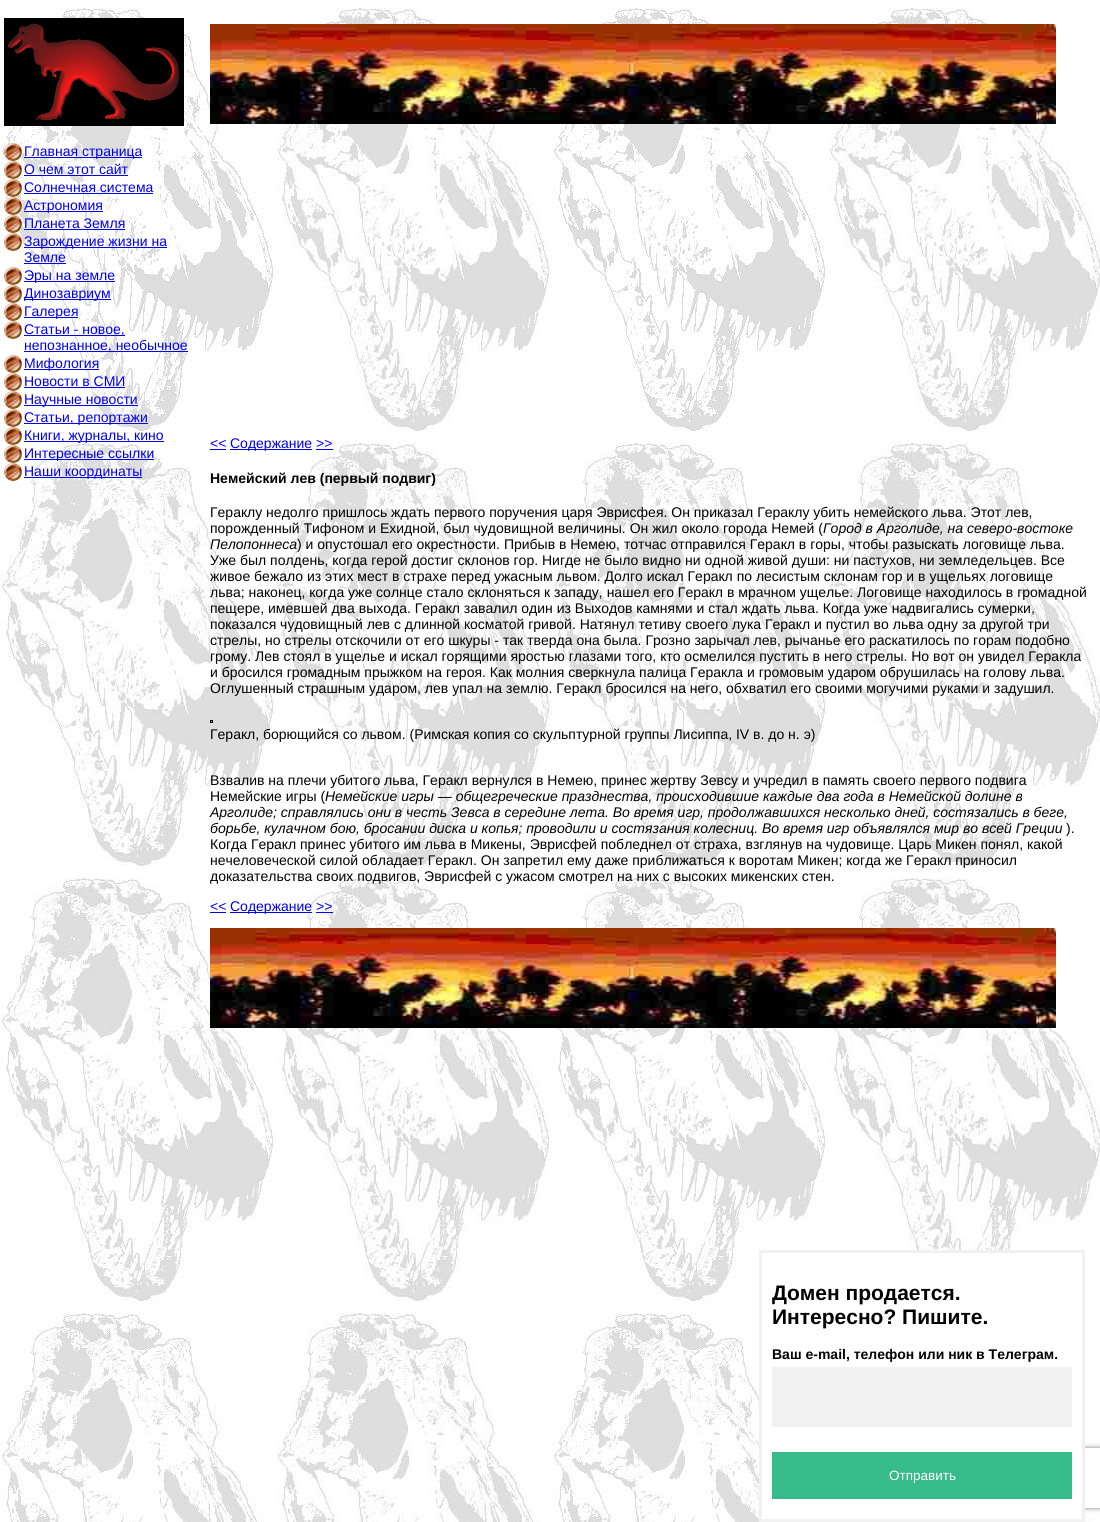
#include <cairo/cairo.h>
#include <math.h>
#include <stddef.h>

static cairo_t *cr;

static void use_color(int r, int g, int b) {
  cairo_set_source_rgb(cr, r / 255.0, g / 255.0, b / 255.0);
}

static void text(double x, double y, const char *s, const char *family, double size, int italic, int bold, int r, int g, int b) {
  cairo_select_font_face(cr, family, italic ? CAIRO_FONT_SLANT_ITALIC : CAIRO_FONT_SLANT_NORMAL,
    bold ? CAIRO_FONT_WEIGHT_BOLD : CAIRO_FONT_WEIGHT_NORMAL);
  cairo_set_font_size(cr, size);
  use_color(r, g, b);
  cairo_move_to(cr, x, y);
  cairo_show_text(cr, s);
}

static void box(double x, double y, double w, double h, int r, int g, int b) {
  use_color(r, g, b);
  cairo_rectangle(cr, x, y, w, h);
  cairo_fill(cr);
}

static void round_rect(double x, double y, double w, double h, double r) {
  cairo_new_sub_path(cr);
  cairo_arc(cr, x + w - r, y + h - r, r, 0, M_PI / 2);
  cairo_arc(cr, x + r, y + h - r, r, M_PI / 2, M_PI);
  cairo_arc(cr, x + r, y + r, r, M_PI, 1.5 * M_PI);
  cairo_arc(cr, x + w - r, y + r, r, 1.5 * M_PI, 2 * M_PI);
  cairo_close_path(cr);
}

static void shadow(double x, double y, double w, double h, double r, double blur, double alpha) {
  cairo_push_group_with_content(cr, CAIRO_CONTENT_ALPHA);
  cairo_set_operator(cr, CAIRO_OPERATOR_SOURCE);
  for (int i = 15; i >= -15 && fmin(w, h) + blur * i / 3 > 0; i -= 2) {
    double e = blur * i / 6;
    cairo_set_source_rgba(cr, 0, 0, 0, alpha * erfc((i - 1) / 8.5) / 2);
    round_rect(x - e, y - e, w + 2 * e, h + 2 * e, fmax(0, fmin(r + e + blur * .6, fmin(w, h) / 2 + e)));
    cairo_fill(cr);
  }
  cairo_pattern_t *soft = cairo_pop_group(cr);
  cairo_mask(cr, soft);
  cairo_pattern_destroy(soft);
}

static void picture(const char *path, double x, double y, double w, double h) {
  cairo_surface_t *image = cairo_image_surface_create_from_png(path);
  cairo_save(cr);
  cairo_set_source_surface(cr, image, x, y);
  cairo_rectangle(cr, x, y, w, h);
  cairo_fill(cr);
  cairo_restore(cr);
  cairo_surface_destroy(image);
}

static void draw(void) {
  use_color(255, 255, 255);
  cairo_paint(cr);
  picture("img_01.png", 0, 8, 1100, 1514);
  picture("img_02.png", 4, 18, 180, 108);
  picture("img_03.png", 4, 143, 18, 18);
  box(24, 157, 118, 1, 0, 0, 238);
  picture("img_04.png", 4, 161, 18, 18);
  box(24, 175, 104, 1, 0, 0, 238);
  picture("img_05.png", 4, 179, 18, 18);
  box(24, 193, 129, 1, 0, 0, 238);
  picture("img_06.png", 4, 197, 18, 18);
  box(24, 211, 79, 1, 0, 0, 238);
  picture("img_07.png", 4, 215, 18, 18);
  box(24, 229, 101, 1, 0, 0, 238);
  picture("img_08.png", 4, 233, 18, 18);
  box(24, 247, 143, 1, 0, 0, 238);
  box(24, 263, 42, 1, 0, 0, 238);
  picture("img_09.png", 4, 267, 18, 18);
  box(24, 281, 91, 1, 0, 0, 238);
  picture("img_09.png", 4, 285, 18, 18);
  box(24, 299, 87, 1, 0, 0, 238);
  picture("img_09.png", 4, 303, 18, 18);
  box(24, 317, 54, 1, 0, 0, 238);
  picture("img_09.png", 4, 321, 18, 18);
  box(24, 335, 101, 1, 0, 0, 238);
  box(24, 351, 164, 1, 0, 0, 238);
  picture("img_09.png", 4, 355, 18, 18);
  box(24, 369, 75, 1, 0, 0, 238);
  picture("img_09.png", 4, 373, 18, 18);
  box(24, 387, 101, 1, 0, 0, 238);
  picture("img_09.png", 4, 391, 18, 18);
  box(24, 405, 114, 1, 0, 0, 238);
  picture("img_09.png", 4, 409, 18, 18);
  box(24, 423, 124, 1, 0, 0, 238);
  picture("img_09.png", 4, 427, 18, 18);
  box(24, 441, 140, 1, 0, 0, 238);
  picture("img_09.png", 4, 445, 18, 18);
  box(24, 459, 130, 1, 0, 0, 238);
  picture("img_09.png", 4, 463, 18, 18);
  box(24, 477, 118, 1, 0, 0, 238);
  picture("img_10.png", 210, 24, 846, 100);
  box(210, 449, 16, 1, 0, 0, 238);
  box(230, 449, 82, 1, 0, 0, 238);
  box(316, 449, 17, 1, 0, 0, 238);
  cairo_rectangle(cr, 210.5, 720.5, 2, 2);
  use_color(0, 0, 0);
  cairo_set_line_width(cr, 1);
  cairo_stroke(cr);
  box(210, 912, 16, 1, 0, 0, 238);
  box(230, 912, 82, 1, 0, 0, 238);
  box(316, 912, 17, 1, 0, 0, 238);
  picture("img_10.png", 210, 928, 846, 100);
  cairo_save(cr);
  cairo_set_fill_rule(cr, CAIRO_FILL_RULE_EVEN_ODD);
  cairo_new_path(cr);
  cairo_move_to(cr, 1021, 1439);
  cairo_line_to(cr, 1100, 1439);
  cairo_line_to(cr, 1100, 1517);
  cairo_line_to(cr, 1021, 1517);
  cairo_close_path(cr);
  cairo_move_to(cr, 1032, 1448);
  cairo_line_to(cr, 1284, 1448);
  cairo_curve_to(cr, 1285, 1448, 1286, 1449, 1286, 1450);
  cairo_line_to(cr, 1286, 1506);
  cairo_curve_to(cr, 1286, 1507, 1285, 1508, 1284, 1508);
  cairo_line_to(cr, 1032, 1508);
  cairo_curve_to(cr, 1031, 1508, 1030, 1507, 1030, 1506);
  cairo_line_to(cr, 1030, 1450);
  cairo_curve_to(cr, 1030, 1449, 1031, 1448, 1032, 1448);
  cairo_close_path(cr);
  cairo_clip(cr);
  use_color(128, 128, 128);
  shadow(1030, 1448, 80, 60, 2, 2.5, 1);
  cairo_restore(cr);
  cairo_rectangle(cr, 760.5, 1251.5, 323, 269);
  use_color(241, 241, 241);
  cairo_set_line_width(cr, 3);
  cairo_stroke(cr);
  box(762, 1253, 320, 266, 255, 255, 255);
  box(772, 1367, 300, 60, 241, 241, 241);
  box(772, 1452, 300, 47, 54, 187, 138);
  text(24, 156, "Главная страница", "Liberation Sans", 14, 0, 0, 0, 0, 238);
  text(24, 174, "О чем этот сайт", "Liberation Sans", 14, 0, 0, 0, 0, 238);
  text(24, 192, "Солнечная система", "Liberation Sans", 14, 0, 0, 0, 0, 238);
  text(24, 210, "Астрономия", "Liberation Sans", 14, 0, 0, 0, 0, 238);
  text(24, 228, "Планета Земля", "Liberation Sans", 14, 0, 0, 0, 0, 238);
  text(24, 246, "Зарождение жизни на", "Liberation Sans", 14, 0, 0, 0, 0, 238);
  text(24, 262, "Земле", "Liberation Sans", 14, 0, 0, 0, 0, 238);
  text(24, 280, "Эры на земле", "Liberation Sans", 14, 0, 0, 0, 0, 238);
  text(24, 298, "Динозавриум", "Liberation Sans", 14, 0, 0, 0, 0, 238);
  text(24, 316, "Галерея", "Liberation Sans", 14, 0, 0, 0, 0, 238);
  text(24, 334, "Статьи - новое,", "Liberation Sans", 14, 0, 0, 0, 0, 238);
  text(24, 350, "непознанное, необычное", "Liberation Sans", 14, 0, 0, 0, 0, 238);
  text(24, 368, "Мифология", "Liberation Sans", 14, 0, 0, 0, 0, 238);
  text(24, 386, "Новости в СМИ", "Liberation Sans", 14, 0, 0, 0, 0, 238);
  text(24, 404, "Научные новости", "Liberation Sans", 14, 0, 0, 0, 0, 238);
  text(24, 422, "Статьи, репортажи", "Liberation Sans", 14, 0, 0, 0, 0, 238);
  text(24, 440, "Книги, журналы, кино", "Liberation Sans", 14, 0, 0, 0, 0, 238);
  text(24, 458, "Интересные ссылки", "Liberation Sans", 14, 0, 0, 0, 0, 238);
  text(24, 476, "Наши координаты", "Liberation Sans", 14, 0, 0, 0, 0, 238);
  text(210, 448, "<<", "Liberation Sans", 14, 0, 0, 0, 0, 238);
  text(230, 448, "Содержание >>", "Liberation Sans", 14, 0, 0, 0, 0, 238);
  text(210, 483, "Немейский лев (первый подвиг)", "Liberation Sans", 14, 0, 1, 0, 0, 0);
  text(210, 517, "Гераклу недолго пришлось ждать первого поручения царя Эврисфея. Он приказал Гераклу убить немейского льва. Этот лев,", "Liberation Sans", 14, 0, 0, 0, 0, 0);
  text(210, 533, "порожденный Тифоном и Ехидной, был чудовищной величины. Он жил около города Немей (", "Liberation Sans", 14, 0, 0, 0, 0, 0);
  text(823, 533, "Город в Арголиде, на северо-востоке", "Liberation Sans", 14, 1, 0, 0, 0, 0);
  text(210, 549, "Пелопоннеса", "Liberation Sans", 14, 1, 0, 0, 0, 0);
  text(297, 549, ") и опустошал его окрестности. Прибыв в Немею, тотчас отправился Геракл в горы, чтобы разыскать логовище льва.", "Liberation Sans", 14, 0, 0, 0, 0, 0);
  text(210, 565, "Уже был полдень, когда герой достиг склонов гор. Нигде не было видно ни одной живой души: ни пастухов, ни земледельцев. Все", "Liberation Sans", 14, 0, 0, 0, 0, 0);
  text(210, 581, "живое бежало из этих мест в страхе перед ужасным львом. Долго искал Геракл по лесистым склонам гор и в ущельях логовище", "Liberation Sans", 14, 0, 0, 0, 0, 0);
  text(210, 597, "льва; наконец, когда уже солнце стало склоняться к западу, нашел его Геракл в мрачном ущелье. Логовище находилось в громадной", "Liberation Sans", 14, 0, 0, 0, 0, 0);
  text(210, 613, "пещере, имевшей два выхода. Геракл завалил один из Выходов камнями и стал ждать льва. Когда уже надвигались сумерки,", "Liberation Sans", 14, 0, 0, 0, 0, 0);
  text(210, 629, "показался чудовищный лев с длинной косматой гривой. Натянул тетиву своего лука Геракл и пустил во льва одну за другой три", "Liberation Sans", 14, 0, 0, 0, 0, 0);
  text(210, 645, "стрелы, но стрелы отскочили от его шкуры - так тверда она была. Грозно зарычал лев, рычанье его раскатилось по горам подобно", "Liberation Sans", 14, 0, 0, 0, 0, 0);
  text(210, 661, "грому. Лев стоял в ущелье и искал горящими яростью глазами того, кто осмелился пустить в него стрелы. Но вот он увидел Геракла", "Liberation Sans", 14, 0, 0, 0, 0, 0);
  text(210, 677, "и бросился громадным прыжком на героя. Как молния сверкнула палица Геракла и громовым ударом обрушилась на голову льва.", "Liberation Sans", 14, 0, 0, 0, 0, 0);
  text(210, 693, "Оглушенный страшным ударом, лев упал на землю. Геракл бросился на него, обхватил его своими могучими руками и задушил.", "Liberation Sans", 14, 0, 0, 0, 0, 0);
  text(210, 739, "Геракл, борющийся со львом. (Римская копия со скульптурной группы Лисиппа, IV в. до н. э)", "Liberation Sans", 14, 0, 0, 0, 0, 0);
  text(210, 785, "Взвалив на плечи убитого льва, Геракл вернулся в Немею, принес жертву Зевсу и учредил в память своего первого подвига", "Liberation Sans", 14, 0, 0, 0, 0, 0);
  text(210, 801, "Немейские игры (", "Liberation Sans", 14, 0, 0, 0, 0, 0);
  text(325, 801, "Немейские игры — общегреческие празднества, происходившие каждые два года в Немейской долине в", "Liberation Sans", 14, 1, 0, 0, 0, 0);
  text(210, 817, "Арголиде; справлялись они в честь Зевса в середине лета. Во время игр, продолжавшихся несколько дней, состязались в беге,", "Liberation Sans", 14, 1, 0, 0, 0, 0);
  text(210, 833, "борьбе, кулачном бою, бросании диска и копья; проводили и состязания колесниц. Во время игр объявлялся мир во всей Греции", "Liberation Sans", 14, 1, 0, 0, 0, 0);
  text(1066, 833, ").", "Liberation Sans", 14, 0, 0, 0, 0, 0);
  text(210, 849, "Когда Геракл принес убитого им льва в Микены, Эврисфей побледнел от страха, взглянув на чудовище. Царь Микен понял, какой", "Liberation Sans", 14, 0, 0, 0, 0, 0);
  text(210, 865, "нечеловеческой силой обладает Геракл. Он запретил ему даже приближаться к воротам Микен; когда же Геракл приносил", "Liberation Sans", 14, 0, 0, 0, 0, 0);
  text(210, 881, "доказательства своих подвигов, Эврисфей с ужасом смотрел на них с высоких микенских стен.", "Liberation Sans", 14, 0, 0, 0, 0, 0);
  text(210, 911, "<<", "Liberation Sans", 14, 0, 0, 0, 0, 238);
  text(230, 911, "Содержание >>", "Liberation Sans", 14, 0, 0, 0, 0, 238);
  text(772, 1300, "Домен продается.", "Liberation Sans", 21, 0, 1, 0, 0, 0);
  text(772, 1324, "Интересно? Пишите.", "Liberation Sans", 21, 0, 1, 0, 0, 0);
  text(772, 1359, "Ваш e-mail, телефон или ник в Телеграм.", "Liberation Sans", 14, 0, 1, 0, 0, 0);
  text(889, 1480, "Отправить", "Liberation Sans", 13.5, 0, 0, 255, 255, 255);
}

int main(void) {
  cairo_surface_t *surface = cairo_image_surface_create(CAIRO_FORMAT_RGB24, 1100, 1522);
  cr = cairo_create(surface);
  cairo_font_options_t *options = cairo_font_options_create();
  cairo_font_options_set_hint_metrics(options, CAIRO_HINT_METRICS_OFF);
  cairo_font_options_set_hint_style(options, CAIRO_HINT_STYLE_NONE);
  cairo_set_font_options(cr, options);
  cairo_set_miter_limit(cr, 4);
  draw();
  cairo_surface_write_to_png(surface, "out.png");
  cairo_font_options_destroy(options);
  cairo_destroy(cr);
  cairo_surface_destroy(surface);
  return 0;
}
